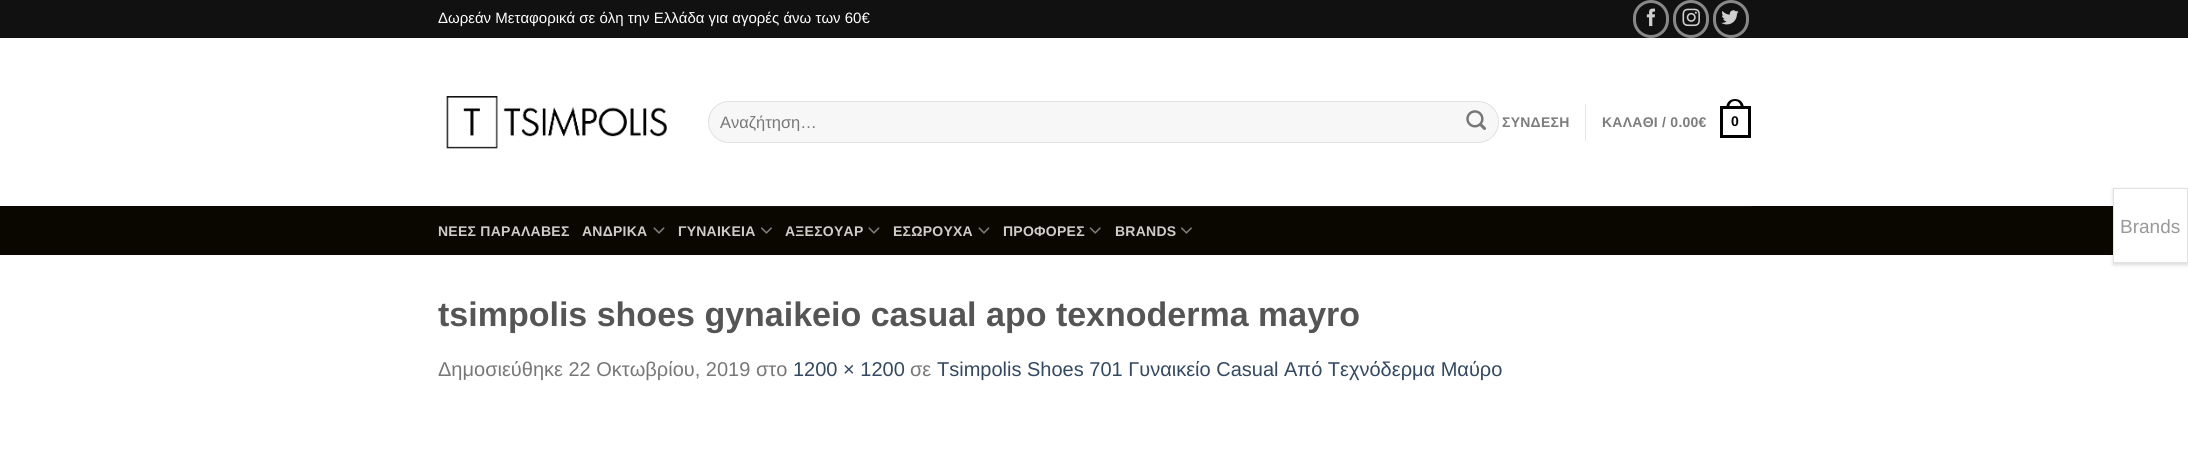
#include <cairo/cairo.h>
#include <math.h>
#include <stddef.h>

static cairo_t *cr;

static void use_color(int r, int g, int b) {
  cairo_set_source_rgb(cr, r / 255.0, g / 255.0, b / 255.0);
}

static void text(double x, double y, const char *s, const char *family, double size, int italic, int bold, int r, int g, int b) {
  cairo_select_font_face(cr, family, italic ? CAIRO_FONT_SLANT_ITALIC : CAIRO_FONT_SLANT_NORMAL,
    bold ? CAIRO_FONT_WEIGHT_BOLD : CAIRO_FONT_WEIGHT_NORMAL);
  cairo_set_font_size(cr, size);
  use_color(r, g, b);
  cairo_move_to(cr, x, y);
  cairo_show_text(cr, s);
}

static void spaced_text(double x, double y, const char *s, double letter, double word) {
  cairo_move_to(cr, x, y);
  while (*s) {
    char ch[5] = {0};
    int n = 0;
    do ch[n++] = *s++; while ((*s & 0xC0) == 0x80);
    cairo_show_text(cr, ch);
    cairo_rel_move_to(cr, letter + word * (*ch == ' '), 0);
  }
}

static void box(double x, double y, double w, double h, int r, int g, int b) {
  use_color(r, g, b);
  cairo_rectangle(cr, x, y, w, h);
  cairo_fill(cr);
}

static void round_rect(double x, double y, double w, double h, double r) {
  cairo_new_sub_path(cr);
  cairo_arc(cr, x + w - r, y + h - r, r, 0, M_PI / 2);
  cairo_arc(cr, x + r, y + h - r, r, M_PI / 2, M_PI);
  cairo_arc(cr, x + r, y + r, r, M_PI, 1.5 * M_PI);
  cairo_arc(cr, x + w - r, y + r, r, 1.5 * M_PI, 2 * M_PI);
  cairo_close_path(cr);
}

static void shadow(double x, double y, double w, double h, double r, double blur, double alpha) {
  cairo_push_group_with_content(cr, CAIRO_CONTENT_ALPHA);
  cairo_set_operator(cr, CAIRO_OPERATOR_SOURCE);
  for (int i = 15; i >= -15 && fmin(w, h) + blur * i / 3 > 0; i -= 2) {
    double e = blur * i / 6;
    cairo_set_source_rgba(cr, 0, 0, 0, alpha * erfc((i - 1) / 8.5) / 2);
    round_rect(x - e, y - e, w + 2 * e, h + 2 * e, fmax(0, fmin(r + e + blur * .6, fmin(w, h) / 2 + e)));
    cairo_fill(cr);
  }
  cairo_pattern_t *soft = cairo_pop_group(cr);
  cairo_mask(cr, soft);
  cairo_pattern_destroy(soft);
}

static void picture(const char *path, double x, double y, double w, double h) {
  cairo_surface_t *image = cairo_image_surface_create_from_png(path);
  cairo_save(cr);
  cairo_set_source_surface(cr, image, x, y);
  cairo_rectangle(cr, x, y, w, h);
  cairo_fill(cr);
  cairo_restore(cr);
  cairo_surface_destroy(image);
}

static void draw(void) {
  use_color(255, 255, 255);
  cairo_paint(cr);
  box(0, 0, 2188, 38, 17, 17, 17);
  round_rect(1634.5, 1.5, 33, 35, 16.5);
  use_color(136, 136, 136);
  cairo_set_line_width(cr, 3);
  cairo_stroke(cr);
  picture("img_01.png", 1646, 8, 9, 19);
  round_rect(1674.5, 1.5, 33, 35, 16.5);
  cairo_stroke(cr);
  picture("img_02.png", 1682, 8, 18, 19);
  round_rect(1714.5, 1.5, 33, 35, 16.5);
  cairo_stroke(cr);
  picture("img_03.png", 1721, 10, 18, 15);
  picture("img_04.png", 446, 96, 221, 53);
  use_color(247, 247, 247);
  round_rect(708, 101, 791, 42, 21);
  cairo_fill(cr);
  round_rect(708.5, 101.5, 790, 41, 20.5);
  cairo_set_source_rgba(cr, 0, 0, 0, 0.09);
  cairo_set_line_width(cr, 1);
  cairo_stroke(cr);
  picture("img_05.png", 1466, 110, 20, 20);
  box(1585, 104, 1, 37, 230, 230, 230);
  cairo_rectangle(cr, 1721.5, 107.5, 28, 29);
  use_color(0, 0, 0);
  cairo_set_line_width(cr, 3);
  cairo_stroke(cr);
  cairo_set_fill_rule(cr, CAIRO_FILL_RULE_EVEN_ODD);
  cairo_new_path(cr);
  cairo_move_to(cr, 1735, 99);
  cairo_curve_to(cr, 1741, 99, 1744, 103.5, 1744, 109);
  cairo_line_to(cr, 1726, 109);
  cairo_curve_to(cr, 1726, 103.5, 1729, 99, 1735, 99);
  cairo_close_path(cr);
  cairo_move_to(cr, 1735, 101);
  cairo_curve_to(cr, 1739.5, 101, 1741, 105, 1741, 109);
  cairo_line_to(cr, 1729, 109);
  cairo_curve_to(cr, 1729, 105, 1730.5, 101, 1735, 101);
  cairo_close_path(cr);
  cairo_fill(cr);
  box(0, 206, 2113, 49, 10, 7, 0);
  box(439, 206, 1312, 1, 21, 18, 12);
  picture("img_06.png", 653, 227, 12, 7);
  picture("img_07.png", 761, 227, 11, 7);
  picture("img_06.png", 868, 227, 12, 7);
  picture("img_06.png", 978, 227, 12, 7);
  picture("img_08.png", 1089, 227, 12, 7);
  picture("img_07.png", 1181, 227, 11, 7);
  use_color(0, 0, 0);
  shadow(2113, 190, 75, 75, 0, 2, 0.15);
  use_color(255, 255, 255);
  cairo_rectangle(cr, 2113.5, 188.5, 74, 74);
  cairo_fill_preserve(cr);
  use_color(225, 225, 225);
  cairo_set_line_width(cr, 1);
  cairo_stroke(cr);
  text(438, 23, "Δωρεάν Μεταφορικά σε όλη την Ελλάδα για αγορές άνω των 60€", "Liberation Sans", 15, 0, 0, 255, 255, 255);
  cairo_save(cr);
  cairo_set_fill_rule(cr, CAIRO_FILL_RULE_WINDING);
  cairo_rectangle(cr, 720, 113, 760, 18);
  cairo_clip(cr);
  text(720, 128, "Αναζήτηση…", "Liberation Sans", 16.5, 0, 0, 119, 119, 119);
  cairo_restore(cr);
  cairo_select_font_face(cr, "Liberation Sans", CAIRO_FONT_SLANT_NORMAL, CAIRO_FONT_WEIGHT_BOLD);
  cairo_set_font_size(cr, 14);
  use_color(125, 125, 125);
  spaced_text(1502, 127, "ΣΥΝΔΕΣΗ", 0.25, 0);
  spaced_text(1602, 127, "ΚΑΛΑΘΙ / 0.00€", 0.25, 0);
  use_color(0, 0, 0);
  spaced_text(1731, 126, "0", 0.25, 0);
  use_color(206, 205, 204);
  spaced_text(438, 236, "ΝΕΕΣ ΠΑΡΑΛΑΒΕΣ", 0.25, 0);
  spaced_text(582, 236, "ΑΝΔΡΙΚΑ", 0.25, 0);
  spaced_text(678, 236, "ΓΥΝΑΙΚΕΙΑ", 0.25, 0);
  spaced_text(785, 236, "ΑΞΕΣΟΥΑΡ", 0.25, 0);
  spaced_text(893, 236, "ΕΣΩΡΟΥΧΑ", 0.25, 0);
  spaced_text(1003, 236, "ΠΡΟΦΟΡΕΣ", 0.25, 0);
  spaced_text(1115, 236, "BRANDS", 0.25, 0);
  text(438, 326, "tsimpolis shoes gynaikeio casual apo texnoderma mayro", "Liberation Sans", 34, 0, 1, 85, 85, 85);
  text(438, 376, "Δημοσιεύθηκε 22 Οκτωβρίου, 2019 στο", "Liberation Sans", 20, 0, 0, 119, 119, 119);
  text(793, 376, "1200 × 1200", "Liberation Sans", 20, 0, 0, 51, 72, 98);
  text(910, 376, "σε", "Liberation Sans", 20, 0, 0, 119, 119, 119);
  text(937, 376, "Tsimpolis Shoes 701 Γυναικείο Casual Από Τεχνόδερμα Μαύρο", "Liberation Sans", 20, 0, 0, 51, 72, 98);
  text(2120, 233, "Brands", "Liberation Sans", 19, 0, 0, 153, 153, 153);
}

int main(void) {
  cairo_surface_t *surface = cairo_image_surface_create(CAIRO_FORMAT_RGB24, 2188, 470);
  cr = cairo_create(surface);
  cairo_font_options_t *options = cairo_font_options_create();
  cairo_font_options_set_hint_metrics(options, CAIRO_HINT_METRICS_OFF);
  cairo_font_options_set_hint_style(options, CAIRO_HINT_STYLE_NONE);
  cairo_set_font_options(cr, options);
  cairo_set_miter_limit(cr, 4);
  draw();
  cairo_surface_write_to_png(surface, "out.png");
  cairo_font_options_destroy(options);
  cairo_destroy(cr);
  cairo_surface_destroy(surface);
  return 0;
}
